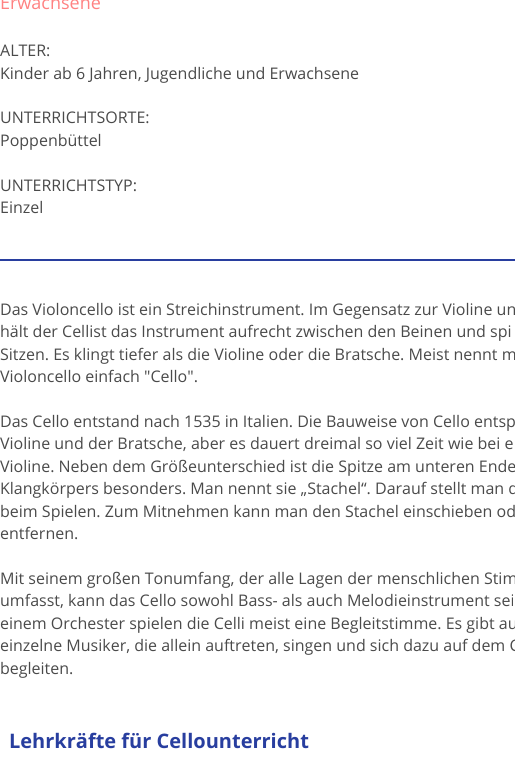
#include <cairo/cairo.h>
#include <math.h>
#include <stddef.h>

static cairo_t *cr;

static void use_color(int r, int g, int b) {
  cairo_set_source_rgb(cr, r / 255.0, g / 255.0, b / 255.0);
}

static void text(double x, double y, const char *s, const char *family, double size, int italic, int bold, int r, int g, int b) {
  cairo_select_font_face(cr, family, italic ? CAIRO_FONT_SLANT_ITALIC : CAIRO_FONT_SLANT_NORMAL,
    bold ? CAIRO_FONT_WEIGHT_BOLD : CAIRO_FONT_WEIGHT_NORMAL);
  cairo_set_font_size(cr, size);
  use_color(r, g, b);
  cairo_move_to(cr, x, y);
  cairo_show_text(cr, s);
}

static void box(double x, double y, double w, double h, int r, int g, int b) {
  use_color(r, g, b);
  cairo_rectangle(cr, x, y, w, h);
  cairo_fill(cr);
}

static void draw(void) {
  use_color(255, 255, 255);
  cairo_paint(cr);
  box(0, 259, 515, 2, 40, 62, 159);
  text(0, 9, "Erwachsene", "Open Sans", 18, 0, 0, 255, 130, 130);
  text(0, 56, "ALTER:", "Open Sans", 16, 0, 0, 74, 74, 74);
  text(0, 79, "Kinder ab 6 Jahren, Jugendliche und Erwachsene", "Open Sans", 16, 0, 0, 74, 74, 74);
  text(0, 123, "UNTERRICHTSORTE:", "Open Sans", 16, 0, 0, 74, 74, 74);
  text(0, 146, "Poppenbüttel", "Open Sans", 16, 0, 0, 74, 74, 74);
  text(0, 191, "UNTERRICHTSTYP:", "Open Sans", 16, 0, 0, 74, 74, 74);
  text(0, 213, "Einzel", "Open Sans", 16, 0, 0, 74, 74, 74);
  text(0, 315, "Das Violoncello ist ein Streichinstrument. Im Gegensatz zur Violine un", "Open Sans", 16, 0, 0, 74, 74, 74);
  text(0, 337, "hält der Cellist das Instrument aufrecht zwischen den Beinen und spi", "Open Sans", 16, 0, 0, 74, 74, 74);
  text(0, 360, "Sitzen. Es klingt tiefer als die Violine oder die Bratsche. Meist nennt m", "Open Sans", 16, 0, 0, 74, 74, 74);
  text(0, 382, "Violoncello einfach \"Cello\".", "Open Sans", 16, 0, 0, 74, 74, 74);
  text(0, 427, "Das Cello entstand nach 1535 in Italien. Die Bauweise von Cello entsp", "Open Sans", 16, 0, 0, 74, 74, 74);
  text(0, 449, "Violine und der Bratsche, aber es dauert dreimal so viel Zeit wie bei e", "Open Sans", 16, 0, 0, 74, 74, 74);
  text(0, 472, "Violine. Neben dem Größeunterschied ist die Spitze am unteren Ende", "Open Sans", 16, 0, 0, 74, 74, 74);
  text(0, 494, "Klangkörpers besonders. Man nennt sie „Stachel“. Darauf stellt man d", "Open Sans", 16, 0, 0, 74, 74, 74);
  text(0, 517, "beim Spielen. Zum Mitnehmen kann man den Stachel einschieben od", "Open Sans", 16, 0, 0, 74, 74, 74);
  text(0, 539, "entfernen.", "Open Sans", 16, 0, 0, 74, 74, 74);
  text(0, 584, "Mit seinem großen Tonumfang, der alle Lagen der menschlichen Stim", "Open Sans", 16, 0, 0, 74, 74, 74);
  text(0, 606, "umfasst, kann das Cello sowohl Bass- als auch Melodieinstrument sei", "Open Sans", 16, 0, 0, 74, 74, 74);
  text(0, 629, "einem Orchester spielen die Celli meist eine Begleitstimme. Es gibt au", "Open Sans", 16, 0, 0, 74, 74, 74);
  text(0, 651, "einzelne Musiker, die allein auftreten, singen und sich dazu auf dem C", "Open Sans", 16, 0, 0, 74, 74, 74);
  text(0, 674, "begleiten.", "Open Sans", 16, 0, 0, 74, 74, 74);
  text(9, 748, "Lehrkräfte für Cellounterricht", "Open Sans", 20, 0, 1, 40, 62, 159);
}

int main(void) {
  cairo_surface_t *surface = cairo_image_surface_create(CAIRO_FORMAT_RGB24, 515, 764);
  cr = cairo_create(surface);
  cairo_font_options_t *options = cairo_font_options_create();
  cairo_font_options_set_hint_metrics(options, CAIRO_HINT_METRICS_OFF);
  cairo_font_options_set_hint_style(options, CAIRO_HINT_STYLE_NONE);
  cairo_set_font_options(cr, options);
  cairo_set_miter_limit(cr, 4);
  draw();
  cairo_surface_write_to_png(surface, "out.png");
  cairo_font_options_destroy(options);
  cairo_destroy(cr);
  cairo_surface_destroy(surface);
  return 0;
}
